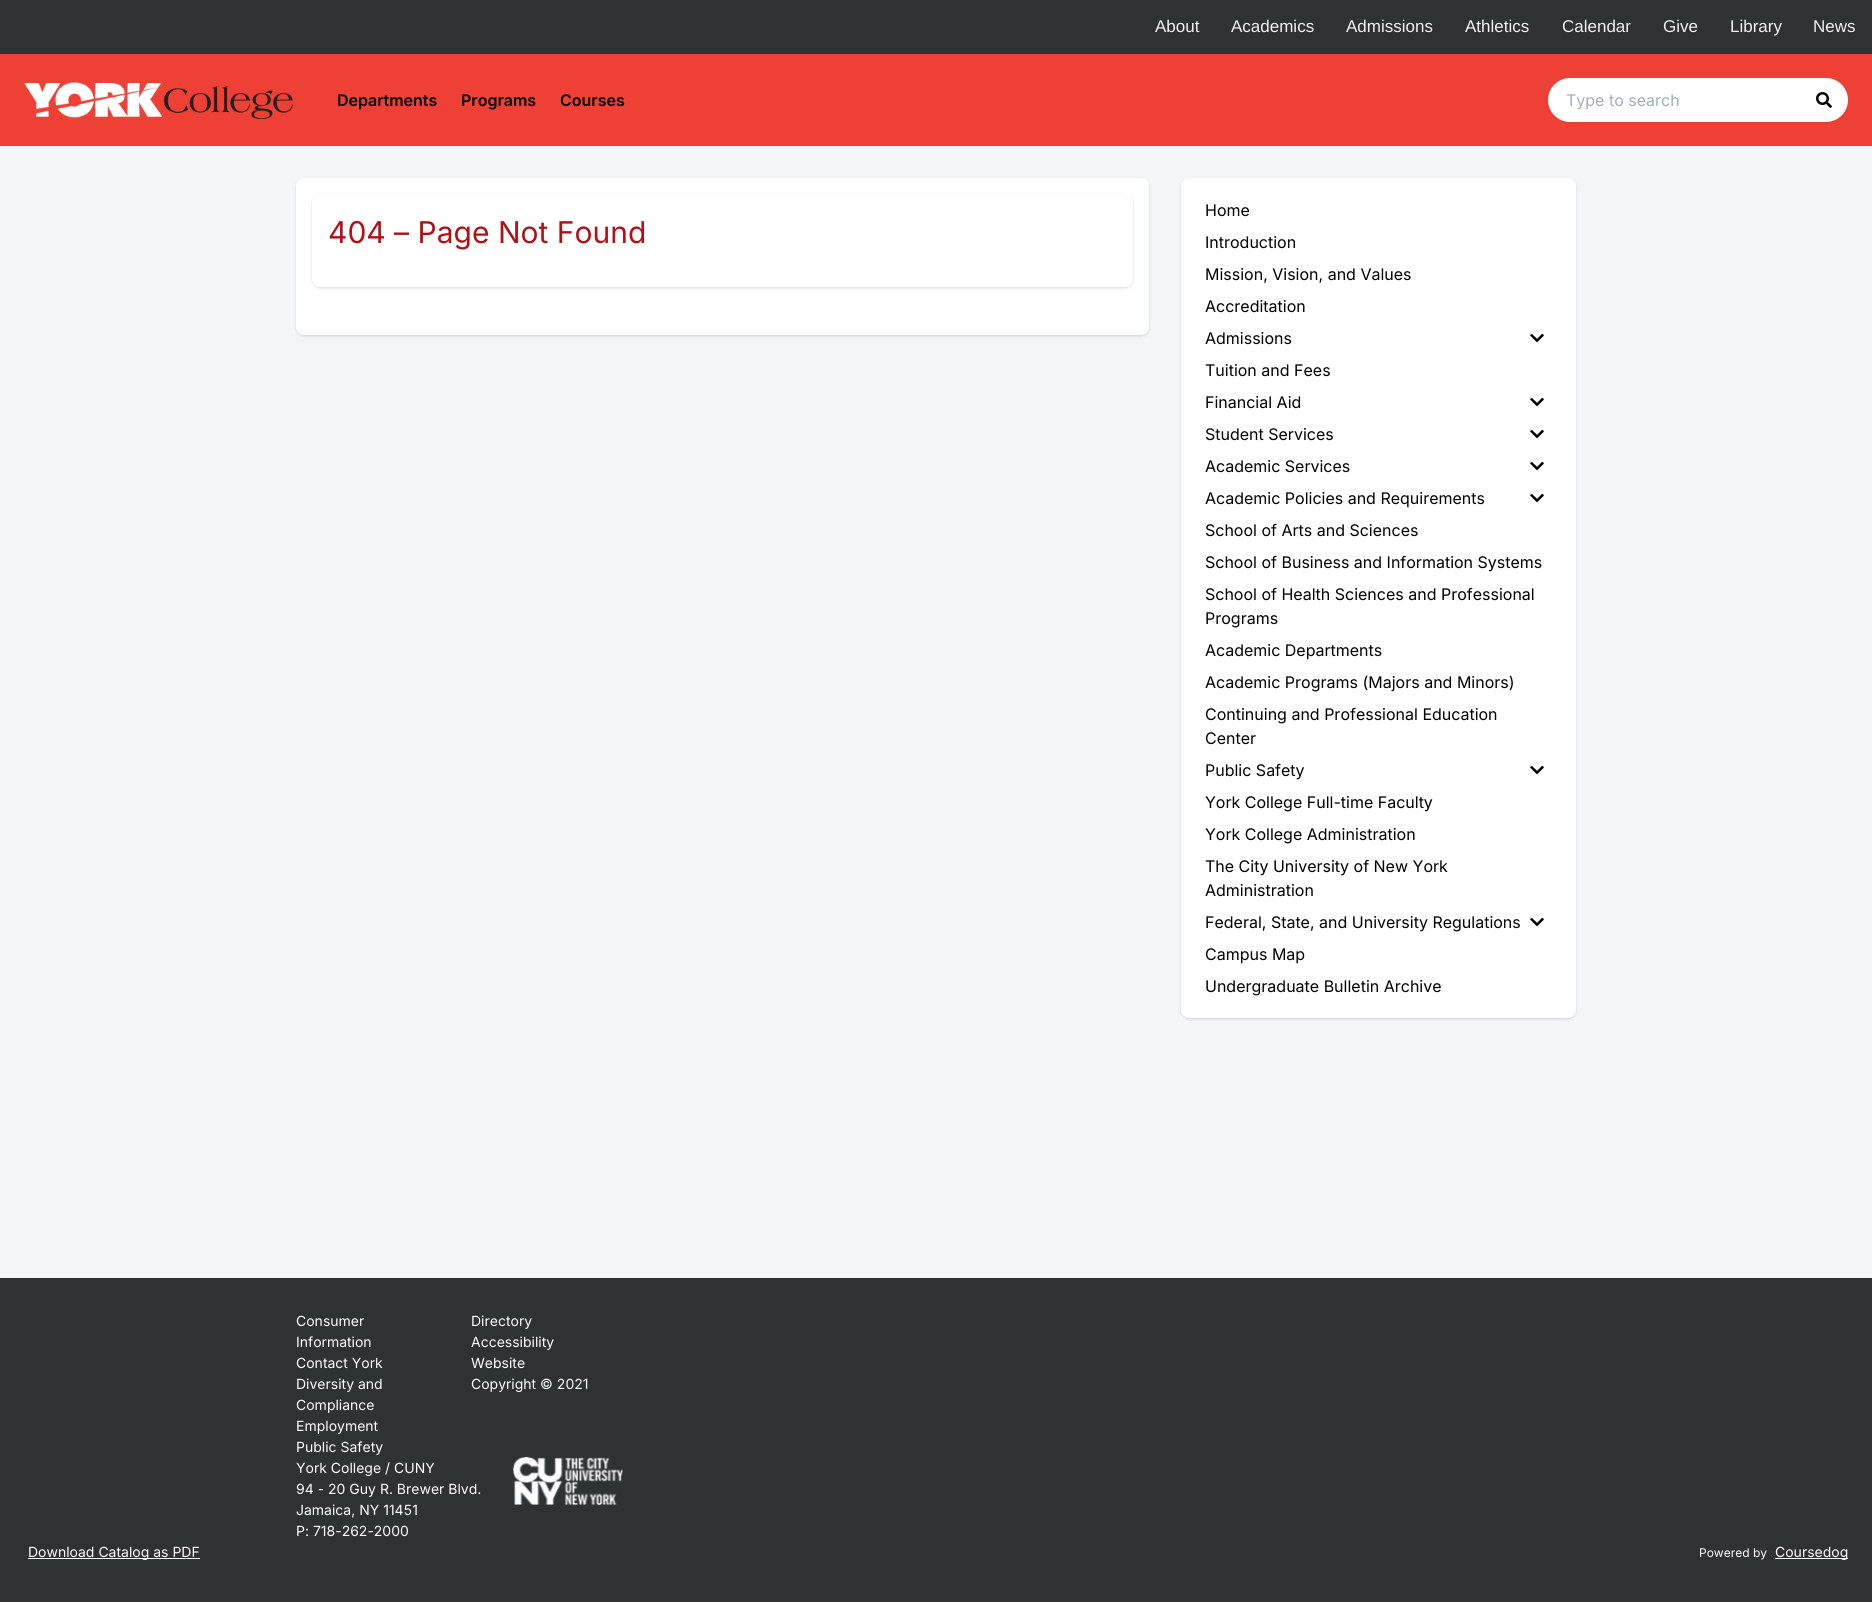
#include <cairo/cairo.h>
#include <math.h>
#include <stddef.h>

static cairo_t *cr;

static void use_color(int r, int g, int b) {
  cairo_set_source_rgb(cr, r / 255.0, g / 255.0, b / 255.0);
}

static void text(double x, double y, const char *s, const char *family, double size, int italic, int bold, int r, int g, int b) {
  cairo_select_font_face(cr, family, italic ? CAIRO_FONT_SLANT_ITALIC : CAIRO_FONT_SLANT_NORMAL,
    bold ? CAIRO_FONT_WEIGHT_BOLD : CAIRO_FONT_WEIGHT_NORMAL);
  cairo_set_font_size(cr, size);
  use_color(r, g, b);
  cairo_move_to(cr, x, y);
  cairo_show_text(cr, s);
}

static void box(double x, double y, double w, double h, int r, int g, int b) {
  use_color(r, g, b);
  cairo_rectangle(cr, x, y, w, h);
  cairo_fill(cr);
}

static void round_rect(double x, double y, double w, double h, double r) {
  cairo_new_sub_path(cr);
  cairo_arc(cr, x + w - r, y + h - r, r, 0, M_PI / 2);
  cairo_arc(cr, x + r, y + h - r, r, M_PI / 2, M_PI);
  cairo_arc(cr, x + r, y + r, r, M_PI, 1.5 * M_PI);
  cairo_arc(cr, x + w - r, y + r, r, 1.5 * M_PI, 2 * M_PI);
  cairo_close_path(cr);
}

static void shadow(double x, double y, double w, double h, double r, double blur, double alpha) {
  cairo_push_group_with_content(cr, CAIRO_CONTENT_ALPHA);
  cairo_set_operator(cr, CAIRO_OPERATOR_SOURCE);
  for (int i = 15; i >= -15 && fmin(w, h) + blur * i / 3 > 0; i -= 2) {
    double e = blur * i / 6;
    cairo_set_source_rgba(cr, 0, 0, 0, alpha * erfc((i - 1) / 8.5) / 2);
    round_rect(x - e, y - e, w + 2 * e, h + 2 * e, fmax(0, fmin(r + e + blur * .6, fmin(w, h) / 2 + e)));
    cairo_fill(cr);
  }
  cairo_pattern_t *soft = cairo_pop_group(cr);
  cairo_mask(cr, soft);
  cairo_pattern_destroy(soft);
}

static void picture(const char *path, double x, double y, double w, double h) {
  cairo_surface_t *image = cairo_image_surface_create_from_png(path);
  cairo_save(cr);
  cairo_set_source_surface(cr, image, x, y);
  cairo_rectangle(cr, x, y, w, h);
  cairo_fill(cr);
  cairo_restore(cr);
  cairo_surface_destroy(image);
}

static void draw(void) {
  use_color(244, 245, 247);
  cairo_paint(cr);
  box(0, 0, 1872, 54, 46, 50, 51);
  box(0, 54, 1872, 92, 239, 64, 53);
  picture("img_01.png", 24, 82, 269, 37);
  use_color(0, 0, 0);
  shadow(1548, 79, 300, 44, 22, 1, 0.05);
  use_color(255, 255, 255);
  round_rect(1548, 78, 300, 44, 22);
  cairo_fill(cr);
  picture("img_02.png", 1816, 92, 16, 16);
  use_color(0, 0, 0);
  shadow(296, 179, 853, 157, 8, 1, 0.06);
  shadow(296, 179, 853, 157, 8, 1.5, 0.1);
  use_color(255, 255, 255);
  round_rect(296, 178, 853, 157, 8);
  cairo_fill(cr);
  use_color(0, 0, 0);
  shadow(312, 195, 821, 93, 8, 1, 0.06);
  shadow(312, 195, 821, 93, 8, 1.5, 0.1);
  use_color(255, 255, 255);
  round_rect(312, 194, 821, 93, 8);
  cairo_fill(cr);
  use_color(0, 0, 0);
  shadow(1181, 179, 395, 840, 8, 1, 0.06);
  shadow(1181, 179, 395, 840, 8, 1.5, 0.1);
  use_color(255, 255, 255);
  round_rect(1181, 178, 395, 840, 8);
  cairo_fill(cr);
  picture("img_03.png", 1530, 333, 14, 10);
  picture("img_03.png", 1530, 397, 14, 10);
  picture("img_03.png", 1530, 429, 14, 10);
  picture("img_03.png", 1530, 461, 14, 10);
  picture("img_03.png", 1530, 493, 14, 10);
  picture("img_03.png", 1530, 765, 14, 10);
  picture("img_03.png", 1530, 917, 14, 10);
  box(0, 1278, 1872, 324, 46, 50, 51);
  picture("img_04.png", 513, 1457, 110, 48);
  box(28, 1558, 172, 1, 255, 255, 255);
  box(1775, 1558, 73, 1, 255, 255, 255);
  text(1155, 32, "About", "Liberation Sans", 17, 0, 0, 242, 242, 242);
  text(1231, 32, "Academics", "Liberation Sans", 17, 0, 0, 242, 242, 242);
  text(1346, 32, "Admissions", "Liberation Sans", 17, 0, 0, 242, 242, 242);
  text(1465, 32, "Athletics", "Liberation Sans", 17, 0, 0, 242, 242, 242);
  text(1562, 32, "Calendar", "Liberation Sans", 17, 0, 0, 242, 242, 242);
  text(1663, 32, "Give", "Liberation Sans", 17, 0, 0, 242, 242, 242);
  text(1730, 32, "Library", "Liberation Sans", 17, 0, 0, 242, 242, 242);
  text(1813, 32, "News", "Liberation Sans", 17, 0, 0, 242, 242, 242);
  text(337, 106, "Departments", "Inter SemiBold", 16, 0, 0, 0, 0, 0);
  text(461, 106, "Programs", "Inter SemiBold", 16, 0, 0, 0, 0, 0);
  text(560, 106, "Courses", "Inter SemiBold", 16, 0, 0, 0, 0, 0);
  text(1566, 106, "Type to search", "Inter", 16, 0, 0, 160, 174, 192);
  text(328, 243, "404 – Page Not Found", "Inter", 30, 0, 0, 177, 17, 22);
  text(1205, 216, "Home", "Inter", 16, 0, 0, 0, 0, 0);
  text(1205, 248, "Introduction", "Inter", 16, 0, 0, 0, 0, 0);
  text(1205, 280, "Mission, Vision, and Values", "Inter", 16, 0, 0, 0, 0, 0);
  text(1205, 312, "Accreditation", "Inter", 16, 0, 0, 0, 0, 0);
  text(1205, 344, "Admissions", "Inter", 16, 0, 0, 0, 0, 0);
  text(1205, 376, "Tuition and Fees", "Inter", 16, 0, 0, 0, 0, 0);
  text(1205, 408, "Financial Aid", "Inter", 16, 0, 0, 0, 0, 0);
  text(1205, 440, "Student Services", "Inter", 16, 0, 0, 0, 0, 0);
  text(1205, 472, "Academic Services", "Inter", 16, 0, 0, 0, 0, 0);
  text(1205, 504, "Academic Policies and Requirements", "Inter", 16, 0, 0, 0, 0, 0);
  text(1205, 536, "School of Arts and Sciences", "Inter", 16, 0, 0, 0, 0, 0);
  text(1205, 568, "School of Business and Information Systems", "Inter", 16, 0, 0, 0, 0, 0);
  text(1205, 600, "School of Health Sciences and Professional", "Inter", 16, 0, 0, 0, 0, 0);
  text(1205, 624, "Programs", "Inter", 16, 0, 0, 0, 0, 0);
  text(1205, 656, "Academic Departments", "Inter", 16, 0, 0, 0, 0, 0);
  text(1205, 688, "Academic Programs (Majors and Minors)", "Inter", 16, 0, 0, 0, 0, 0);
  text(1205, 720, "Continuing and Professional Education", "Inter", 16, 0, 0, 0, 0, 0);
  text(1205, 744, "Center", "Inter", 16, 0, 0, 0, 0, 0);
  text(1205, 776, "Public Safety", "Inter", 16, 0, 0, 0, 0, 0);
  text(1205, 808, "York College Full-time Faculty", "Inter", 16, 0, 0, 0, 0, 0);
  text(1205, 840, "York College Administration", "Inter", 16, 0, 0, 0, 0, 0);
  text(1205, 872, "The City University of New York", "Inter", 16, 0, 0, 0, 0, 0);
  text(1205, 896, "Administration", "Inter", 16, 0, 0, 0, 0, 0);
  text(1205, 928, "Federal, State, and University Regulations", "Inter", 16, 0, 0, 0, 0, 0);
  text(1205, 960, "Campus Map", "Inter", 16, 0, 0, 0, 0, 0);
  text(1205, 992, "Undergraduate Bulletin Archive", "Inter", 16, 0, 0, 0, 0, 0);
  text(296, 1326, "Consumer", "Inter", 14, 0, 0, 255, 255, 255);
  text(296, 1347, "Information", "Inter", 14, 0, 0, 255, 255, 255);
  text(296, 1368, "Contact York", "Inter", 14, 0, 0, 255, 255, 255);
  text(296, 1389, "Diversity and", "Inter", 14, 0, 0, 255, 255, 255);
  text(296, 1410, "Compliance", "Inter", 14, 0, 0, 255, 255, 255);
  text(296, 1431, "Employment", "Inter", 14, 0, 0, 255, 255, 255);
  text(296, 1452, "Public Safety", "Inter", 14, 0, 0, 255, 255, 255);
  text(471, 1326, "Directory", "Inter", 14, 0, 0, 255, 255, 255);
  text(471, 1347, "Accessibility", "Inter", 14, 0, 0, 255, 255, 255);
  text(471, 1368, "Website", "Inter", 14, 0, 0, 255, 255, 255);
  text(471, 1389, "Copyright © 2021", "Inter", 14, 0, 0, 255, 255, 255);
  text(296, 1473, "York College / CUNY", "Inter", 14, 0, 0, 255, 255, 255);
  text(296, 1494, "94 - 20 Guy R. Brewer Blvd.", "Inter", 14, 0, 0, 255, 255, 255);
  text(296, 1515, "Jamaica, NY 11451", "Inter", 14, 0, 0, 255, 255, 255);
  text(296, 1536, "P: 718-262-2000", "Inter", 14, 0, 0, 255, 255, 255);
  text(28, 1557, "Download Catalog as PDF", "Inter", 14, 0, 0, 255, 255, 255);
  text(1699, 1557, "Powered by", "Inter", 12, 0, 0, 255, 255, 255);
  text(1775, 1557, "Coursedog", "Inter", 14, 0, 0, 255, 255, 255);
}

int main(void) {
  cairo_surface_t *surface = cairo_image_surface_create(CAIRO_FORMAT_RGB24, 1872, 1602);
  cr = cairo_create(surface);
  cairo_font_options_t *options = cairo_font_options_create();
  cairo_font_options_set_hint_metrics(options, CAIRO_HINT_METRICS_OFF);
  cairo_font_options_set_hint_style(options, CAIRO_HINT_STYLE_NONE);
  cairo_set_font_options(cr, options);
  cairo_set_miter_limit(cr, 4);
  draw();
  cairo_surface_write_to_png(surface, "out.png");
  cairo_font_options_destroy(options);
  cairo_destroy(cr);
  cairo_surface_destroy(surface);
  return 0;
}
